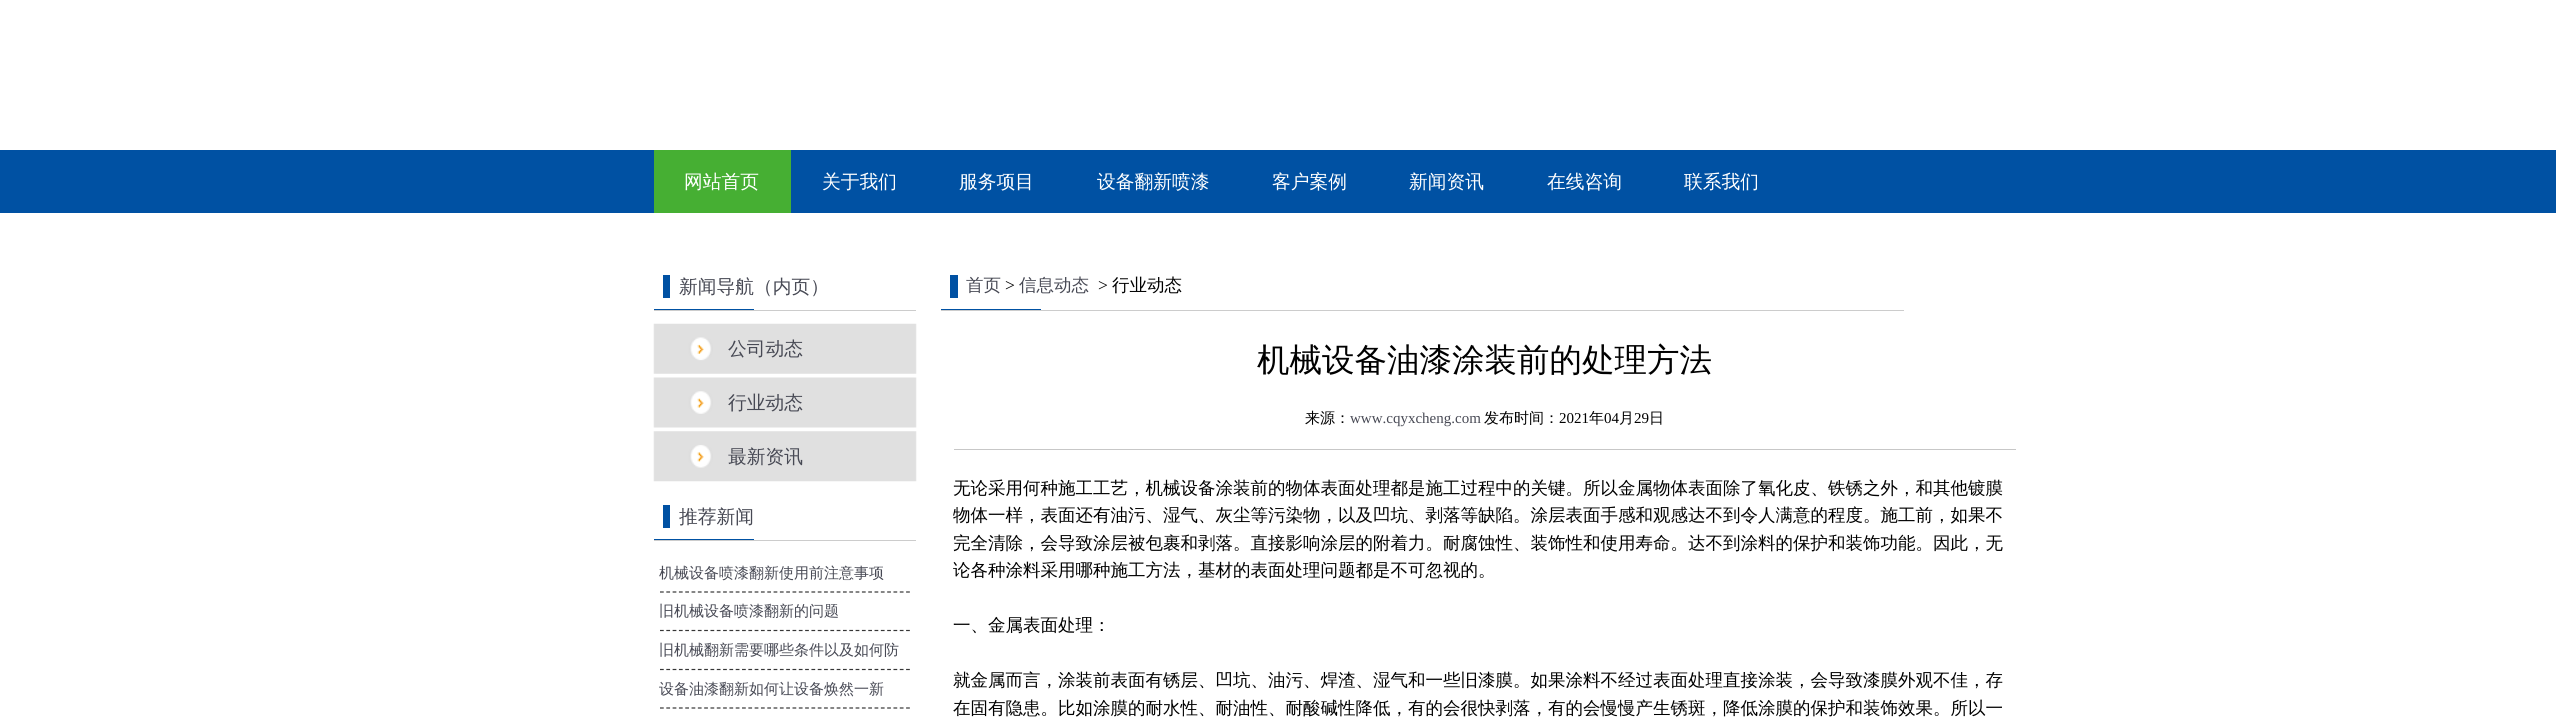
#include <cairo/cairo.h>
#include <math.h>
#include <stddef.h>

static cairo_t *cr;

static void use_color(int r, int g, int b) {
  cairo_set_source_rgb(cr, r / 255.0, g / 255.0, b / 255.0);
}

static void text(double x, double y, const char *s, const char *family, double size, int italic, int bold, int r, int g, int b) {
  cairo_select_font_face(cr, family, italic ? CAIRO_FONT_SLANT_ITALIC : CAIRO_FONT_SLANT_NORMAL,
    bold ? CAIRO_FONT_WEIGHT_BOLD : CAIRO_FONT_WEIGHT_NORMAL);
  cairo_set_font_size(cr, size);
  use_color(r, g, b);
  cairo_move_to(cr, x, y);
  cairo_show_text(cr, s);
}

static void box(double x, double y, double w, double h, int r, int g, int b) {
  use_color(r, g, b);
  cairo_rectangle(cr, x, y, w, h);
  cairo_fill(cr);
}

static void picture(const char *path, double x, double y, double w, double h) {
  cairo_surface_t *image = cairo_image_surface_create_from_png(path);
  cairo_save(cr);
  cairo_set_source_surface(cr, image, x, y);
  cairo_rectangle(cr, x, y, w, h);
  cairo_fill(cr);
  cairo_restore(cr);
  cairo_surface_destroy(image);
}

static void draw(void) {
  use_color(255, 255, 255);
  cairo_paint(cr);
  box(0, 150, 2556, 63, 0, 81, 163);
  box(654, 150, 137, 63, 70, 175, 51);
  box(654, 310, 262, 1, 204, 204, 204);
  box(663, 275, 7, 23, 0, 81, 163);
  box(654, 309, 100, 1, 0, 81, 163);
  picture("img_01.png", 653, 323, 264, 51);
  picture("img_02.png", 653, 377, 264, 51);
  picture("img_03.png", 653, 431, 264, 51);
  box(654, 540, 262, 1, 204, 204, 204);
  box(663, 505, 7, 23, 0, 81, 163);
  box(654, 539, 100, 1, 0, 81, 163);
  cairo_new_path(cr);
  cairo_move_to(cr, 660, 592);
  cairo_line_to(cr, 910, 592);
  use_color(54, 54, 54);
  cairo_set_line_width(cr, 1.2);
  cairo_set_dash(cr, (double[]){3.75, 2.56}, 2, 0);
  cairo_stroke(cr);
  cairo_new_path(cr);
  cairo_move_to(cr, 660, 630.5);
  cairo_line_to(cr, 910, 630.5);
  cairo_stroke(cr);
  cairo_new_path(cr);
  cairo_move_to(cr, 660, 669.5);
  cairo_line_to(cr, 910, 669.5);
  cairo_stroke(cr);
  cairo_new_path(cr);
  cairo_move_to(cr, 660, 708);
  cairo_line_to(cr, 910, 708);
  cairo_stroke(cr);
  box(941, 310, 963, 1, 204, 204, 204);
  box(950, 275, 8, 23, 0, 81, 163);
  box(941, 309, 100, 1, 0, 81, 163);
  box(954, 449, 1062, 1, 199, 199, 199);
  text(684, 188, "网站首页", "WenQuanYi Zen Hei Medium", 18.75, 0, 0, 255, 255, 255);
  text(822, 188, "关于我们", "WenQuanYi Zen Hei Medium", 18.75, 0, 0, 255, 255, 255);
  text(959, 188, "服务项目", "WenQuanYi Zen Hei Medium", 18.75, 0, 0, 255, 255, 255);
  text(1097, 188, "设备翻新喷漆", "WenQuanYi Zen Hei Medium", 18.75, 0, 0, 255, 255, 255);
  text(1272, 188, "客户案例", "WenQuanYi Zen Hei Medium", 18.75, 0, 0, 255, 255, 255);
  text(1409, 188, "新闻资讯", "WenQuanYi Zen Hei Medium", 18.75, 0, 0, 255, 255, 255);
  text(1547, 188, "在线咨询", "WenQuanYi Zen Hei Medium", 18.75, 0, 0, 255, 255, 255);
  text(1684, 188, "联系我们", "WenQuanYi Zen Hei Medium", 18.75, 0, 0, 255, 255, 255);
  text(679, 293, "新闻导航（内页）", "WenQuanYi Zen Hei Medium", 18.75, 0, 0, 71, 73, 84);
  text(728, 355, "公司动态", "WenQuanYi Zen Hei Medium", 18.75, 0, 0, 71, 73, 84);
  text(728, 409, "行业动态", "WenQuanYi Zen Hei Medium", 18.75, 0, 0, 71, 73, 84);
  text(728, 463, "最新资讯", "WenQuanYi Zen Hei Medium", 18.75, 0, 0, 71, 73, 84);
  text(679, 523, "推荐新闻", "WenQuanYi Zen Hei Medium", 18.75, 0, 0, 71, 73, 84);
  text(659, 578, "机械设备喷漆翻新使用前注意事项", "WenQuanYi Zen Hei Medium", 15, 0, 0, 71, 73, 84);
  text(659, 616, "旧机械设备喷漆翻新的问题", "WenQuanYi Zen Hei Medium", 15, 0, 0, 71, 73, 84);
  text(659, 655, "旧机械翻新需要哪些条件以及如何防", "WenQuanYi Zen Hei Medium", 15, 0, 0, 71, 73, 84);
  text(659, 694, "设备油漆翻新如何让设备焕然一新", "WenQuanYi Zen Hei Medium", 15, 0, 0, 71, 73, 84);
  text(966, 291, "首页", "WenQuanYi Zen Hei Medium", 17.5, 0, 0, 71, 73, 84);
  text(1005, 291, ">", "Liberation Serif", 17.5, 0, 0, 0, 0, 0);
  text(1019, 291, "信息动态", "WenQuanYi Zen Hei Medium", 17.5, 0, 0, 71, 73, 84);
  text(1098, 291, ">", "Liberation Serif", 17.5, 0, 0, 0, 0, 0);
  text(1112, 291, "行业动态", "WenQuanYi Zen Hei Medium", 17.5, 0, 0, 0, 0, 0);
  text(1257, 371, "机械设备油漆涂装前的处理方法", "WenQuanYi Zen Hei Medium", 32.5, 0, 0, 0, 0, 0);
  text(1305, 423, "来源：", "WenQuanYi Zen Hei Medium", 15, 0, 0, 0, 0, 0);
  text(1350, 423, "www.cqyxcheng.com", "Liberation Serif", 15, 0, 0, 71, 73, 84);
  text(1484, 423, "发布时间：", "WenQuanYi Zen Hei Medium", 15, 0, 0, 0, 0, 0);
  text(1559, 423, "2021", "Liberation Serif", 15, 0, 0, 0, 0, 0);
  text(1589, 423, "年", "WenQuanYi Zen Hei Medium", 15, 0, 0, 0, 0, 0);
  text(1604, 423, "04", "Liberation Serif", 15, 0, 0, 0, 0, 0);
  text(1619, 423, "月", "WenQuanYi Zen Hei Medium", 15, 0, 0, 0, 0, 0);
  text(1634, 423, "29", "Liberation Serif", 15, 0, 0, 0, 0, 0);
  text(1649, 423, "日", "WenQuanYi Zen Hei Medium", 15, 0, 0, 0, 0, 0);
  text(953, 494, "无论采用何种施工工艺，机械设备涂装前的物体表面处理都是施工过程中的关键。所以金属物体表面除了氧化皮、铁锈之外，和其他镀膜", "WenQuanYi Zen Hei Medium", 17.5, 0, 0, 0, 0, 0);
  text(953, 521, "物体一样，表面还有油污、湿气、灰尘等污染物，以及凹坑、剥落等缺陷。涂层表面手感和观感达不到令人满意的程度。施工前，如果不", "WenQuanYi Zen Hei Medium", 17.5, 0, 0, 0, 0, 0);
  text(953, 549, "完全清除，会导致涂层被包裹和剥落。直接影响涂层的附着力。耐腐蚀性、装饰性和使用寿命。达不到涂料的保护和装饰功能。因此，无", "WenQuanYi Zen Hei Medium", 17.5, 0, 0, 0, 0, 0);
  text(953, 576, "论各种涂料采用哪种施工方法，基材的表面处理问题都是不可忽视的。", "WenQuanYi Zen Hei Medium", 17.5, 0, 0, 0, 0, 0);
  text(953, 631, "一、金属表面处理：", "WenQuanYi Zen Hei Medium", 17.5, 0, 0, 0, 0, 0);
  text(953, 686, "就金属而言，涂装前表面有锈层、凹坑、油污、焊渣、湿气和一些旧漆膜。如果涂料不经过表面处理直接涂装，会导致漆膜外观不佳，存", "WenQuanYi Zen Hei Medium", 17.5, 0, 0, 0, 0, 0);
  text(953, 714, "在固有隐患。比如涂膜的耐水性、耐油性、耐酸碱性降低，有的会很快剥落，有的会慢慢产生锈斑，降低涂膜的保护和装饰效果。所以一", "WenQuanYi Zen Hei Medium", 17.5, 0, 0, 0, 0, 0);
}

int main(void) {
  cairo_surface_t *surface = cairo_image_surface_create(CAIRO_FORMAT_RGB24, 2556, 725);
  cr = cairo_create(surface);
  cairo_font_options_t *options = cairo_font_options_create();
  cairo_font_options_set_hint_metrics(options, CAIRO_HINT_METRICS_OFF);
  cairo_font_options_set_hint_style(options, CAIRO_HINT_STYLE_NONE);
  cairo_set_font_options(cr, options);
  cairo_set_miter_limit(cr, 4);
  draw();
  cairo_surface_write_to_png(surface, "out.png");
  cairo_font_options_destroy(options);
  cairo_destroy(cr);
  cairo_surface_destroy(surface);
  return 0;
}
